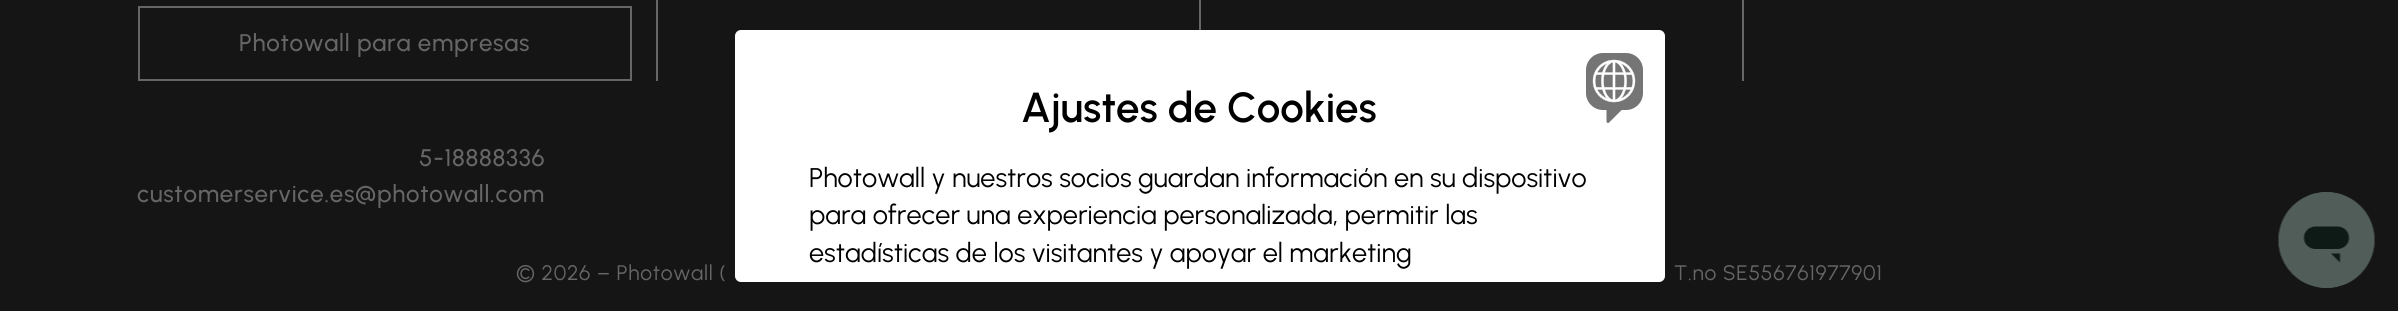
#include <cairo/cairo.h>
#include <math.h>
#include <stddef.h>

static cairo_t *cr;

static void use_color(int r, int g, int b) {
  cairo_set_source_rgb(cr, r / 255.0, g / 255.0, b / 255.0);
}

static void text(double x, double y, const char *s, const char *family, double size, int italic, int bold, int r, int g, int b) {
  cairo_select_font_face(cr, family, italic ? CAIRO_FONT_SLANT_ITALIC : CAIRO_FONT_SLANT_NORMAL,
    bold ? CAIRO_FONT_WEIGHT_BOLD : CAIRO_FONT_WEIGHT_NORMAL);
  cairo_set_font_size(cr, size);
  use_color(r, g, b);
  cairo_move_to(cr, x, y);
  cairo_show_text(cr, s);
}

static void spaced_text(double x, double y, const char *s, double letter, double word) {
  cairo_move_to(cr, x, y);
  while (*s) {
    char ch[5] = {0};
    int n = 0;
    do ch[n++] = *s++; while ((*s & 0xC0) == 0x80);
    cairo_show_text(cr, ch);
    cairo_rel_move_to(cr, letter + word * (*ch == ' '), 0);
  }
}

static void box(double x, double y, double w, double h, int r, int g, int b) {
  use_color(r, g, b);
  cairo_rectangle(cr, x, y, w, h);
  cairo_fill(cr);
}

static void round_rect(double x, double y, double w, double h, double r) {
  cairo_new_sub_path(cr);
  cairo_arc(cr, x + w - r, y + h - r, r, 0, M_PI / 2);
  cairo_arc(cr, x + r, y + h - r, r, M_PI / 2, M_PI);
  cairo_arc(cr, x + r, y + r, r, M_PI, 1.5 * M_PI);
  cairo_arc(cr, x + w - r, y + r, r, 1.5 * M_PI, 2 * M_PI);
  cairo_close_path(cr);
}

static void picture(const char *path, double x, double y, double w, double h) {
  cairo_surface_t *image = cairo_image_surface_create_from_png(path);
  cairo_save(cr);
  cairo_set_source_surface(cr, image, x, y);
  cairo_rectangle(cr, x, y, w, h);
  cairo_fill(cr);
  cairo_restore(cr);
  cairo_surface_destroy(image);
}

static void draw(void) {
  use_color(21, 21, 21);
  cairo_paint(cr);
  cairo_rectangle(cr, 139, 7, 492, 73);
  use_color(102, 102, 102);
  cairo_stroke(cr);
  box(656, 0, 2, 81, 102, 102, 102);
  box(1199, 0, 2, 30, 102, 102, 102);
  box(1742, 0, 2, 81, 102, 102, 102);
  use_color(255, 255, 255);
  round_rect(735, 30, 930, 252, 6);
  cairo_fill(cr);
  picture("img_01.png", 1586, 53, 57, 70);
  picture("img_02.png", 2278, 192, 97, 96);
  cairo_select_font_face(cr, "Urbanist Medium", CAIRO_FONT_SLANT_NORMAL, CAIRO_FONT_WEIGHT_NORMAL);
  cairo_set_font_size(cr, 24);
  use_color(102, 102, 102);
  spaced_text(239, 51, "Photowall para empresas", 0.75, 0);
  spaced_text(419, 166, "5-18888336", 0.75, 0);
  spaced_text(137, 202, "customerservice.es@photowall.com", 0.75, 0);
  cairo_select_font_face(cr, "Urbanist", CAIRO_FONT_SLANT_NORMAL, CAIRO_FONT_WEIGHT_NORMAL);
  cairo_set_font_size(cr, 21);
  spaced_text(516, 280, "© 2026 – Photowall (", 0.75, 0);
  spaced_text(1674, 280, "T.no SE556761977901", 0.75, 0);
  text(1021, 122, "Ajustes de Cookies", "Urbanist SemiBold", 42, 0, 0, 0, 0, 0);
  text(809, 187, "Photowall y nuestros socios guardan información en su dispositivo", "Urbanist", 27, 0, 0, 0, 0, 0);
  text(809, 224, "para ofrecer una experiencia personalizada, permitir las", "Urbanist", 27, 0, 0, 0, 0, 0);
  text(809, 262, "estadísticas de los visitantes y apoyar el marketing", "Urbanist", 27, 0, 0, 0, 0, 0);
}

int main(void) {
  cairo_surface_t *surface = cairo_image_surface_create(CAIRO_FORMAT_RGB24, 2398, 311);
  cr = cairo_create(surface);
  cairo_font_options_t *options = cairo_font_options_create();
  cairo_font_options_set_hint_metrics(options, CAIRO_HINT_METRICS_OFF);
  cairo_font_options_set_hint_style(options, CAIRO_HINT_STYLE_NONE);
  cairo_set_font_options(cr, options);
  cairo_set_miter_limit(cr, 4);
  draw();
  cairo_surface_write_to_png(surface, "out.png");
  cairo_font_options_destroy(options);
  cairo_destroy(cr);
  cairo_surface_destroy(surface);
  return 0;
}
